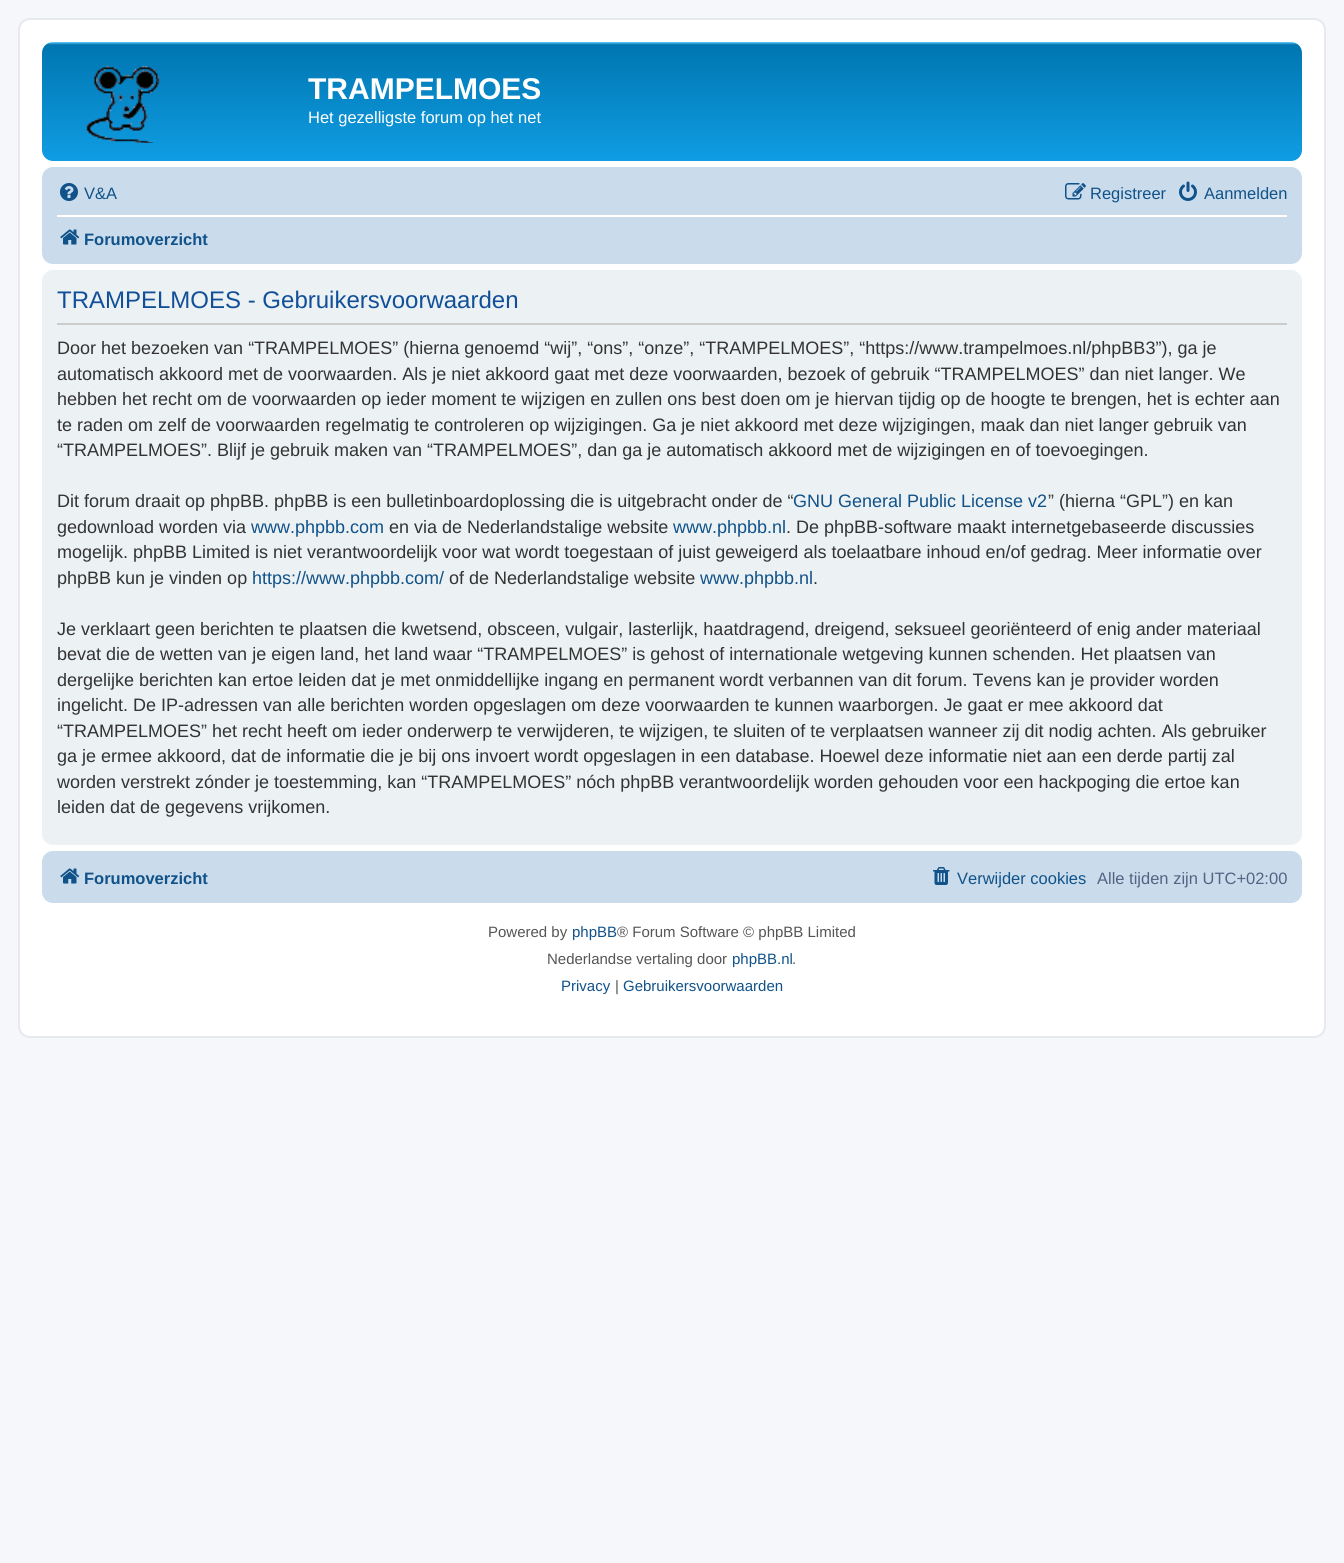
#include <cairo/cairo.h>
#include <math.h>
#include <stddef.h>

static cairo_t *cr;

static void use_color(int r, int g, int b) {
  cairo_set_source_rgb(cr, r / 255.0, g / 255.0, b / 255.0);
}

static void text(double x, double y, const char *s, const char *family, double size, int italic, int bold, int r, int g, int b) {
  cairo_select_font_face(cr, family, italic ? CAIRO_FONT_SLANT_ITALIC : CAIRO_FONT_SLANT_NORMAL,
    bold ? CAIRO_FONT_WEIGHT_BOLD : CAIRO_FONT_WEIGHT_NORMAL);
  cairo_set_font_size(cr, size);
  use_color(r, g, b);
  cairo_move_to(cr, x, y);
  cairo_show_text(cr, s);
}

static void box(double x, double y, double w, double h, int r, int g, int b) {
  use_color(r, g, b);
  cairo_rectangle(cr, x, y, w, h);
  cairo_fill(cr);
}

static void round_rect(double x, double y, double w, double h, double r) {
  cairo_new_sub_path(cr);
  cairo_arc(cr, x + w - r, y + h - r, r, 0, M_PI / 2);
  cairo_arc(cr, x + r, y + h - r, r, M_PI / 2, M_PI);
  cairo_arc(cr, x + r, y + r, r, M_PI, 1.5 * M_PI);
  cairo_arc(cr, x + w - r, y + r, r, 1.5 * M_PI, 2 * M_PI);
  cairo_close_path(cr);
}

static void picture(const char *path, double x, double y, double w, double h) {
  cairo_surface_t *image = cairo_image_surface_create_from_png(path);
  cairo_save(cr);
  cairo_set_source_surface(cr, image, x, y);
  cairo_rectangle(cr, x, y, w, h);
  cairo_fill(cr);
  cairo_restore(cr);
  cairo_surface_destroy(image);
}

static void draw(void) {
  cairo_pattern_t *gradient;
  use_color(245, 247, 250);
  cairo_paint(cr);
  use_color(255, 255, 255);
  round_rect(19, 19, 1306, 1018, 11);
  cairo_fill_preserve(cr);
  use_color(230, 233, 237);
  cairo_stroke(cr);
  gradient = cairo_pattern_create_linear(672, 42, 672, 180);
  cairo_pattern_add_color_stop_rgba(gradient, 0, 0.416, 0.808, 1, 1);
  cairo_pattern_add_color_stop_rgba(gradient, 0.02, 0, 0.463, 0.694, 1);
  cairo_pattern_add_color_stop_rgba(gradient, 1, 0.071, 0.639, 0.922, 1);
  cairo_set_source(cr, gradient);
  cairo_pattern_destroy(gradient);
  round_rect(42, 42, 1260, 119, 11);
  cairo_fill(cr);
  picture("img_01.png", 86, 65, 74, 78);
  use_color(202, 220, 235);
  round_rect(42, 167, 1260, 97, 11);
  cairo_fill(cr);
  picture("img_02.png", 60, 183, 18, 18);
  picture("img_03.png", 1065, 183, 21, 17);
  picture("img_04.png", 1179, 181, 18, 20);
  box(57, 215, 1230, 2, 255, 255, 255);
  picture("img_05.png", 60, 229, 20, 16);
  use_color(236, 241, 243);
  round_rect(42, 270, 1260, 575, 11);
  cairo_fill(cr);
  box(57, 323, 1230, 2, 204, 204, 204);
  use_color(202, 220, 235);
  round_rect(42, 851, 1260, 52, 11);
  cairo_fill(cr);
  picture("img_05.png", 60, 868, 20, 16);
  picture("img_06.png", 933, 867, 17, 18);
  text(308, 99, "TRAMPELMOES", "Liberation Sans", 30, 0, 1, 255, 255, 255);
  text(308, 123, "Het gezelligste forum op het net", "Liberation Sans", 16.5, 0, 0, 255, 255, 255);
  text(84, 199, "V&A", "Liberation Sans", 16.5, 0, 0, 16, 82, 137);
  text(1090, 199, "Registreer", "Liberation Sans", 16.5, 0, 0, 16, 82, 137);
  text(1204, 199, "Aanmelden", "Liberation Sans", 16.5, 0, 0, 16, 82, 137);
  text(84, 245, "Forumoverzicht", "Liberation Sans", 16.5, 0, 1, 16, 82, 137);
  text(57, 308, "TRAMPELMOES - Gebruikersvoorwaarden", "Liberation Sans", 24, 0, 0, 17, 80, 152);
  text(57, 354, "Door het bezoeken van “TRAMPELMOES” (hierna genoemd “wij”, “ons”, “onze”, “TRAMPELMOES”, “https://www.trampelmoes.nl/phpBB3”), ga je", "Liberation Sans", 18, 0, 0, 51, 51, 51);
  text(57, 380, "automatisch akkoord met de voorwaarden. Als je niet akkoord gaat met deze voorwaarden, bezoek of gebruik “TRAMPELMOES” dan niet langer. We", "Liberation Sans", 18, 0, 0, 51, 51, 51);
  text(57, 405, "hebben het recht om de voorwaarden op ieder moment te wijzigen en zullen ons best doen om je hiervan tijdig op de hoogte te brengen, het is echter aan", "Liberation Sans", 18, 0, 0, 51, 51, 51);
  text(57, 431, "te raden om zelf de voorwaarden regelmatig te controleren op wijzigingen. Ga je niet akkoord met deze wijzigingen, maak dan niet langer gebruik van", "Liberation Sans", 18, 0, 0, 51, 51, 51);
  text(57, 456, "“TRAMPELMOES”. Blijf je gebruik maken van “TRAMPELMOES”, dan ga je automatisch akkoord met de wijzigingen en of toevoegingen.", "Liberation Sans", 18, 0, 0, 51, 51, 51);
  text(57, 507, "Dit forum draait op phpBB. phpBB is een bulletinboardoplossing die is uitgebracht onder de “", "Liberation Sans", 18, 0, 0, 51, 51, 51);
  text(793, 507, "GNU General Public License v2", "Liberation Sans", 18, 0, 0, 16, 82, 137);
  text(1048, 507, "” (hierna “GPL”) en kan", "Liberation Sans", 18, 0, 0, 51, 51, 51);
  text(57, 533, "gedownload worden via", "Liberation Sans", 18, 0, 0, 51, 51, 51);
  text(251, 533, "www.phpbb.com", "Liberation Sans", 18, 0, 0, 16, 82, 137);
  text(389, 533, "en via de Nederlandstalige website", "Liberation Sans", 18, 0, 0, 51, 51, 51);
  text(673, 533, "www.phpbb.nl", "Liberation Sans", 18, 0, 0, 16, 82, 137);
  text(786, 533, ". De phpBB-software maakt internetgebaseerde discussies", "Liberation Sans", 18, 0, 0, 51, 51, 51);
  text(57, 558, "mogelijk. phpBB Limited is niet verantwoordelijk voor wat wordt toegestaan of juist geweigerd als toelaatbare inhoud en/of gedrag. Meer informatie over", "Liberation Sans", 18, 0, 0, 51, 51, 51);
  text(57, 584, "phpBB kun je vinden op", "Liberation Sans", 18, 0, 0, 51, 51, 51);
  text(252, 584, "https://www.phpbb.com/", "Liberation Sans", 18, 0, 0, 16, 82, 137);
  text(449, 584, "of de Nederlandstalige website", "Liberation Sans", 18, 0, 0, 51, 51, 51);
  text(700, 584, "www.phpbb.nl", "Liberation Sans", 18, 0, 0, 16, 82, 137);
  text(813, 584, ".", "Liberation Sans", 18, 0, 0, 51, 51, 51);
  text(57, 635, "Je verklaart geen berichten te plaatsen die kwetsend, obsceen, vulgair, lasterlijk, haatdragend, dreigend, seksueel georiënteerd of enig ander materiaal", "Liberation Sans", 18, 0, 0, 51, 51, 51);
  text(57, 660, "bevat die de wetten van je eigen land, het land waar “TRAMPELMOES” is gehost of internationale wetgeving kunnen schenden. Het plaatsen van", "Liberation Sans", 18, 0, 0, 51, 51, 51);
  text(57, 686, "dergelijke berichten kan ertoe leiden dat je met onmiddellijke ingang en permanent wordt verbannen van dit forum. Tevens kan je provider worden", "Liberation Sans", 18, 0, 0, 51, 51, 51);
  text(57, 711, "ingelicht. De IP-adressen van alle berichten worden opgeslagen om deze voorwaarden te kunnen waarborgen. Je gaat er mee akkoord dat", "Liberation Sans", 18, 0, 0, 51, 51, 51);
  text(57, 737, "“TRAMPELMOES” het recht heeft om ieder onderwerp te verwijderen, te wijzigen, te sluiten of te verplaatsen wanneer zij dit nodig achten. Als gebruiker", "Liberation Sans", 18, 0, 0, 51, 51, 51);
  text(57, 762, "ga je ermee akkoord, dat de informatie die je bij ons invoert wordt opgeslagen in een database. Hoewel deze informatie niet aan een derde partij zal", "Liberation Sans", 18, 0, 0, 51, 51, 51);
  text(57, 788, "worden verstrekt zónder je toestemming, kan “TRAMPELMOES” nóch phpBB verantwoordelijk worden gehouden voor een hackpoging die ertoe kan", "Liberation Sans", 18, 0, 0, 51, 51, 51);
  text(57, 813, "leiden dat de gegevens vrijkomen.", "Liberation Sans", 18, 0, 0, 51, 51, 51);
  text(84, 884, "Forumoverzicht", "Liberation Sans", 16.5, 0, 1, 16, 82, 137);
  text(957, 884, "Verwijder cookies", "Liberation Sans", 16.5, 0, 0, 16, 82, 137);
  text(1097, 884, "Alle tijden zijn UTC+02:00", "Liberation Sans", 16.5, 0, 0, 83, 100, 130);
  text(488, 937, "Powered by", "Liberation Sans", 15, 0, 0, 85, 85, 85);
  text(572, 937, "phpBB", "Liberation Sans", 15, 0, 0, 16, 82, 137);
  text(617, 937, "® Forum Software © phpBB Limited", "Liberation Sans", 15, 0, 0, 85, 85, 85);
  text(547, 964, "Nederlandse vertaling door", "Liberation Sans", 15, 0, 0, 85, 85, 85);
  text(732, 964, "phpBB.nl", "Liberation Sans", 15, 0, 0, 16, 82, 137);
  text(792, 964, ".", "Liberation Sans", 15, 0, 0, 85, 85, 85);
  text(561, 991, "Privacy", "Liberation Sans", 15, 0, 0, 16, 82, 137);
  text(615, 991, "|", "Liberation Sans", 15, 0, 0, 85, 85, 85);
  text(623, 991, "Gebruikersvoorwaarden", "Liberation Sans", 15, 0, 0, 16, 82, 137);
}

int main(void) {
  cairo_surface_t *surface = cairo_image_surface_create(CAIRO_FORMAT_RGB24, 1344, 1563);
  cr = cairo_create(surface);
  cairo_font_options_t *options = cairo_font_options_create();
  cairo_font_options_set_hint_metrics(options, CAIRO_HINT_METRICS_OFF);
  cairo_font_options_set_hint_style(options, CAIRO_HINT_STYLE_NONE);
  cairo_set_font_options(cr, options);
  cairo_set_miter_limit(cr, 4);
  draw();
  cairo_surface_write_to_png(surface, "out.png");
  cairo_font_options_destroy(options);
  cairo_destroy(cr);
  cairo_surface_destroy(surface);
  return 0;
}
